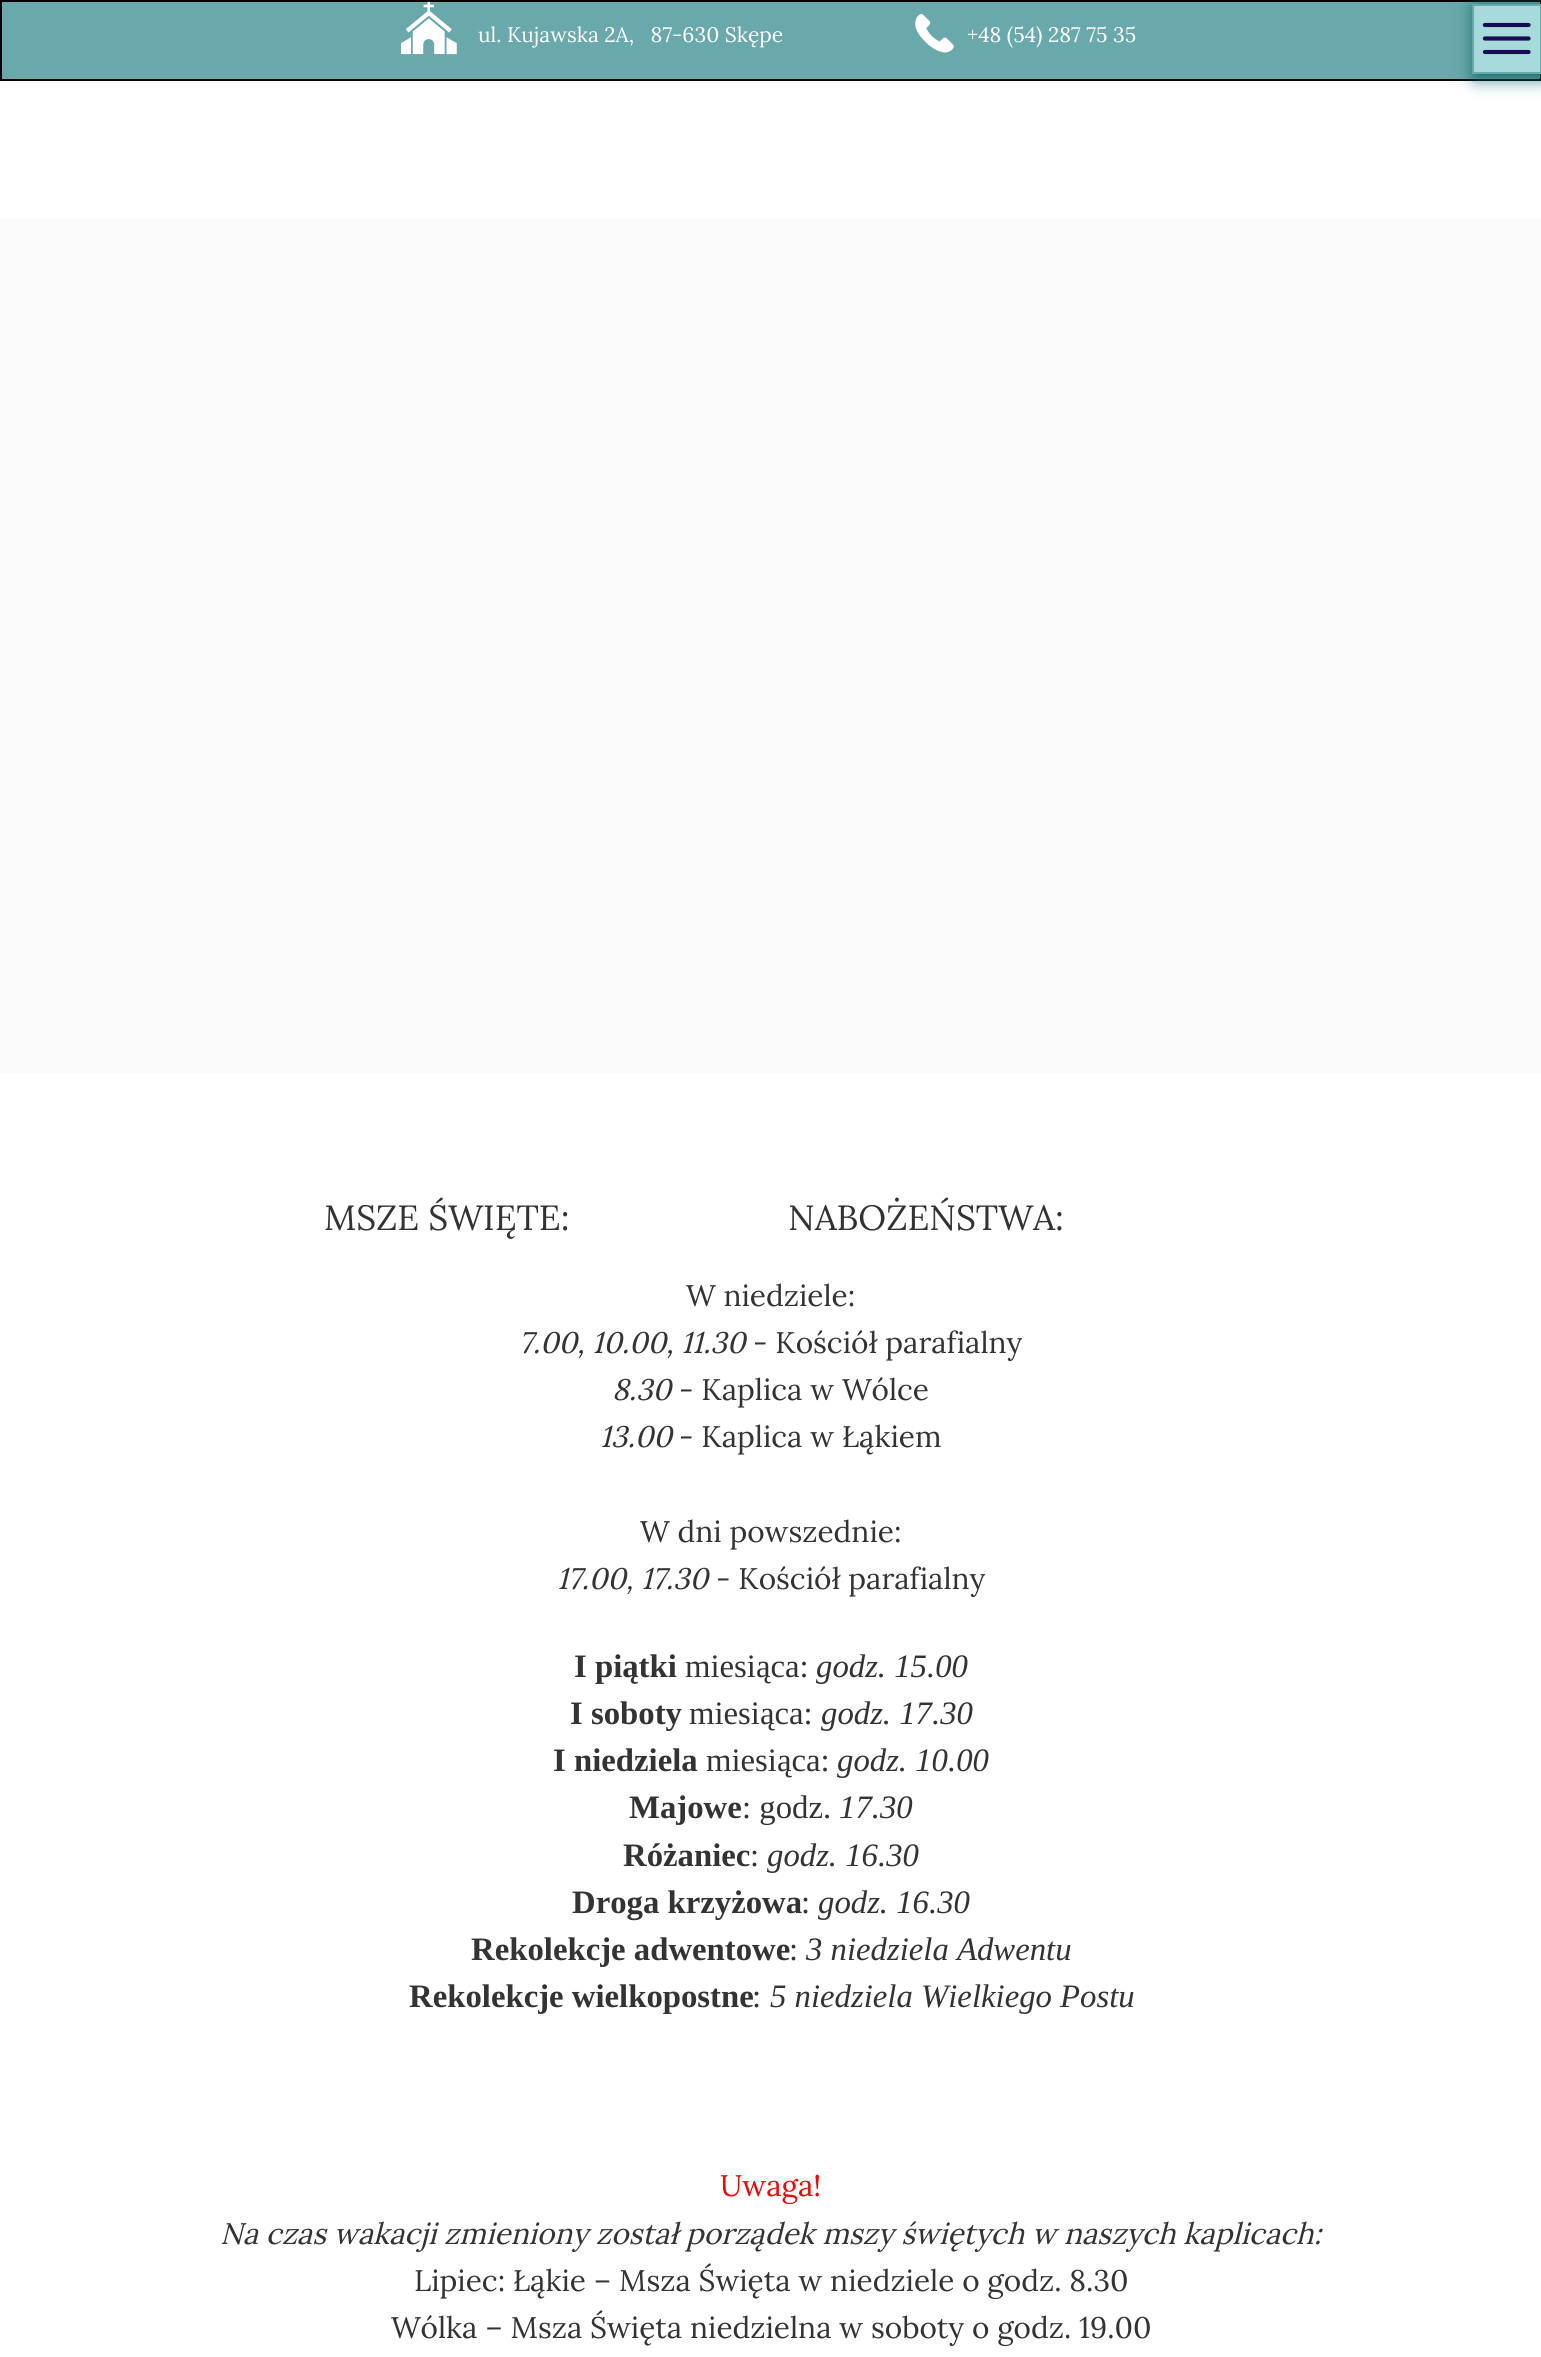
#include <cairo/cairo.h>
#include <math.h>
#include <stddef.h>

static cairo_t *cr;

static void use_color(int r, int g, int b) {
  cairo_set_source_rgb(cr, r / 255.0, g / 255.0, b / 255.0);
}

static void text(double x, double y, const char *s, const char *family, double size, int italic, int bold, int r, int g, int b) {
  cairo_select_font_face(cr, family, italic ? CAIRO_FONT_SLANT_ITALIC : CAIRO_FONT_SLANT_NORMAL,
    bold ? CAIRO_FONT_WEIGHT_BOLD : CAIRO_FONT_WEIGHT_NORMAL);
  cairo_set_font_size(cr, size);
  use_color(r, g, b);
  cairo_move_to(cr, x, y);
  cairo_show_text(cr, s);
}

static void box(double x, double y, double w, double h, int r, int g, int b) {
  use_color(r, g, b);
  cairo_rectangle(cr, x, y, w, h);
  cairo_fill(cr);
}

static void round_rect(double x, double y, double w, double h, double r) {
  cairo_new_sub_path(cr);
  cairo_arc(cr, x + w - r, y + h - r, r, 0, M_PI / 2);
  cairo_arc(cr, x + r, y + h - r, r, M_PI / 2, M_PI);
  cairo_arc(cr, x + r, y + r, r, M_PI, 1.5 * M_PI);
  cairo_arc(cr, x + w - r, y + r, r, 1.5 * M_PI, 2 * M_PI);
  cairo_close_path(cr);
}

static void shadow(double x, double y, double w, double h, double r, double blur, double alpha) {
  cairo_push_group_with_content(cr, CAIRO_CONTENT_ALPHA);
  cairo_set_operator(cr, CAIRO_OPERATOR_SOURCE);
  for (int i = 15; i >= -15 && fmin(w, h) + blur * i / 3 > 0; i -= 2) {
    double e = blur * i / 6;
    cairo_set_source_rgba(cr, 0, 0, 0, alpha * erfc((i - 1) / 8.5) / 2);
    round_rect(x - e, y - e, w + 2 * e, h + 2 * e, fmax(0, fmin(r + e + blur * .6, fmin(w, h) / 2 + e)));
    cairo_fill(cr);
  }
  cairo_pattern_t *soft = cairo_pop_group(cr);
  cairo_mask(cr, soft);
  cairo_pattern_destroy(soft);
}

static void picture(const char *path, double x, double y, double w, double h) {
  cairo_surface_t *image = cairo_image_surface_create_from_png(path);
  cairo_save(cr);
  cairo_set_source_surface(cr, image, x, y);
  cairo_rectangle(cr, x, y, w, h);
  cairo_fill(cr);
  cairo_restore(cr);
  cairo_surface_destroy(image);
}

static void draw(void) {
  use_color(255, 255, 255);
  cairo_paint(cr);
  use_color(105, 168, 171);
  cairo_rectangle(cr, 1, 1, 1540, 79);
  cairo_fill_preserve(cr);
  use_color(0, 0, 0);
  cairo_stroke(cr);
  picture("img_01.png", 401, 1, 56, 54);
  picture("img_02.png", 915, 14, 39, 39);
  use_color(2, 95, 97);
  shadow(1475, 7, 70, 70, 0, 9, 1);
  use_color(167, 218, 219);
  cairo_rectangle(cr, 1473, 5, 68, 68);
  cairo_fill_preserve(cr);
  use_color(105, 168, 171);
  cairo_stroke(cr);
  picture("img_03.png", 1482, 22, 49, 33);
  box(0, 219, 1541, 854, 250, 250, 250);
  text(478, 42, "ul. Kujawska 2A,   87-630 Skępe", "Lora", 21, 0, 0, 255, 255, 255);
  text(967, 42, "+48 (54) 287 75 35", "Lora", 21, 0, 0, 255, 255, 255);
  text(324, 1230, "MSZE ŚWIĘTE:", "Lora", 35, 0, 0, 51, 51, 51);
  text(788, 1230, "NABOŻEŃSTWA:", "Lora", 35, 0, 0, 51, 51, 51);
  text(686, 1306, "W niedziele:", "Lora", 29.75, 0, 0, 51, 51, 51);
  text(519, 1353, "7.00, 10.00, 11.30", "Lora", 29.75, 1, 0, 51, 51, 51);
  text(753, 1353, "- Kościół parafialny", "Lora", 29.75, 0, 0, 51, 51, 51);
  text(612, 1400, "8.30", "Lora", 29.75, 1, 0, 51, 51, 51);
  text(679, 1400, "- Kaplica w Wólce", "Lora", 29.75, 0, 0, 51, 51, 51);
  text(600, 1447, "13.00", "Lora", 29.75, 1, 0, 51, 51, 51);
  text(679, 1447, "- Kaplica w Łąkiem", "Lora", 29.75, 0, 0, 51, 51, 51);
  text(640, 1542, "W dni powszednie:", "Lora", 29.75, 0, 0, 51, 51, 51);
  text(557, 1589, "17.00, 17.30", "Lora", 29.75, 1, 0, 51, 51, 51);
  text(716, 1589, "- Kościół parafialny", "Lora", 29.75, 0, 0, 51, 51, 51);
  text(574, 1677, "I piątki", "Liberation Serif", 32.75, 0, 1, 51, 51, 51);
  text(685, 1677, "miesiąca:", "Liberation Serif", 32.75, 0, 0, 51, 51, 51);
  text(816, 1677, "godz. 15.00", "Liberation Serif", 32.75, 1, 0, 51, 51, 51);
  text(570, 1724, "I soboty", "Liberation Serif", 32.75, 0, 1, 51, 51, 51);
  text(689, 1724, "miesiąca:", "Liberation Serif", 32.75, 0, 0, 51, 51, 51);
  text(821, 1724, "godz. 17.30", "Liberation Serif", 32.75, 1, 0, 51, 51, 51);
  text(553, 1771, "I niedziela", "Liberation Serif", 32.75, 0, 1, 51, 51, 51);
  text(706, 1771, "miesiąca:", "Liberation Serif", 32.75, 0, 0, 51, 51, 51);
  text(837, 1771, "godz. 10.00", "Liberation Serif", 32.75, 1, 0, 51, 51, 51);
  text(629, 1818, "Majowe", "Liberation Serif", 32.75, 0, 1, 51, 51, 51);
  text(742, 1818, ": godz.", "Liberation Serif", 32.75, 0, 0, 51, 51, 51);
  text(839, 1818, "17.30", "Liberation Serif", 32.75, 1, 0, 51, 51, 51);
  text(623, 1866, "Różaniec", "Liberation Serif", 32.75, 0, 1, 51, 51, 51);
  text(750, 1866, ":", "Liberation Serif", 32.75, 0, 0, 51, 51, 51);
  text(767, 1866, "godz. 16.30", "Liberation Serif", 32.75, 1, 0, 51, 51, 51);
  text(572, 1913, "Droga krzyżowa", "Liberation Serif", 32.75, 0, 1, 51, 51, 51);
  text(801, 1913, ":", "Liberation Serif", 32.75, 0, 0, 51, 51, 51);
  text(818, 1913, "godz. 16.30", "Liberation Serif", 32.75, 1, 0, 51, 51, 51);
  text(471, 1960, "Rekolekcje adwentowe", "Liberation Serif", 32.75, 0, 1, 51, 51, 51);
  text(789, 1960, ":", "Liberation Serif", 32.75, 0, 0, 51, 51, 51);
  text(806, 1960, "3 niedziela Adwentu", "Liberation Serif", 32.75, 1, 0, 51, 51, 51);
  text(409, 2007, "Rekolekcje wielkopostne", "Liberation Serif", 32.75, 0, 1, 51, 51, 51);
  text(752, 2007, ":", "Liberation Serif", 32.75, 0, 0, 51, 51, 51);
  text(770, 2007, "5 niedziela Wielkiego Postu", "Liberation Serif", 32.75, 1, 0, 51, 51, 51);
  text(720, 2196, "Uwaga!", "Lora", 29.75, 0, 0, 255, 0, 0);
  text(220, 2244, "Na czas wakacji zmieniony został porządek mszy świętych w naszych kaplicach:", "Lora", 29.75, 1, 0, 51, 51, 51);
  text(414, 2291, "Lipiec: Łąkie – Msza Święta w niedziele o godz. 8.30", "Lora", 29.75, 0, 0, 51, 51, 51);
  text(391, 2338, "Wólka – Msza Święta niedzielna w soboty o godz. 19.00", "Lora", 29.75, 0, 0, 51, 51, 51);
}

int main(void) {
  cairo_surface_t *surface = cairo_image_surface_create(CAIRO_FORMAT_RGB24, 1541, 2357);
  cr = cairo_create(surface);
  cairo_font_options_t *options = cairo_font_options_create();
  cairo_font_options_set_hint_metrics(options, CAIRO_HINT_METRICS_OFF);
  cairo_font_options_set_hint_style(options, CAIRO_HINT_STYLE_NONE);
  cairo_set_font_options(cr, options);
  cairo_set_miter_limit(cr, 4);
  draw();
  cairo_surface_write_to_png(surface, "out.png");
  cairo_font_options_destroy(options);
  cairo_destroy(cr);
  cairo_surface_destroy(surface);
  return 0;
}
